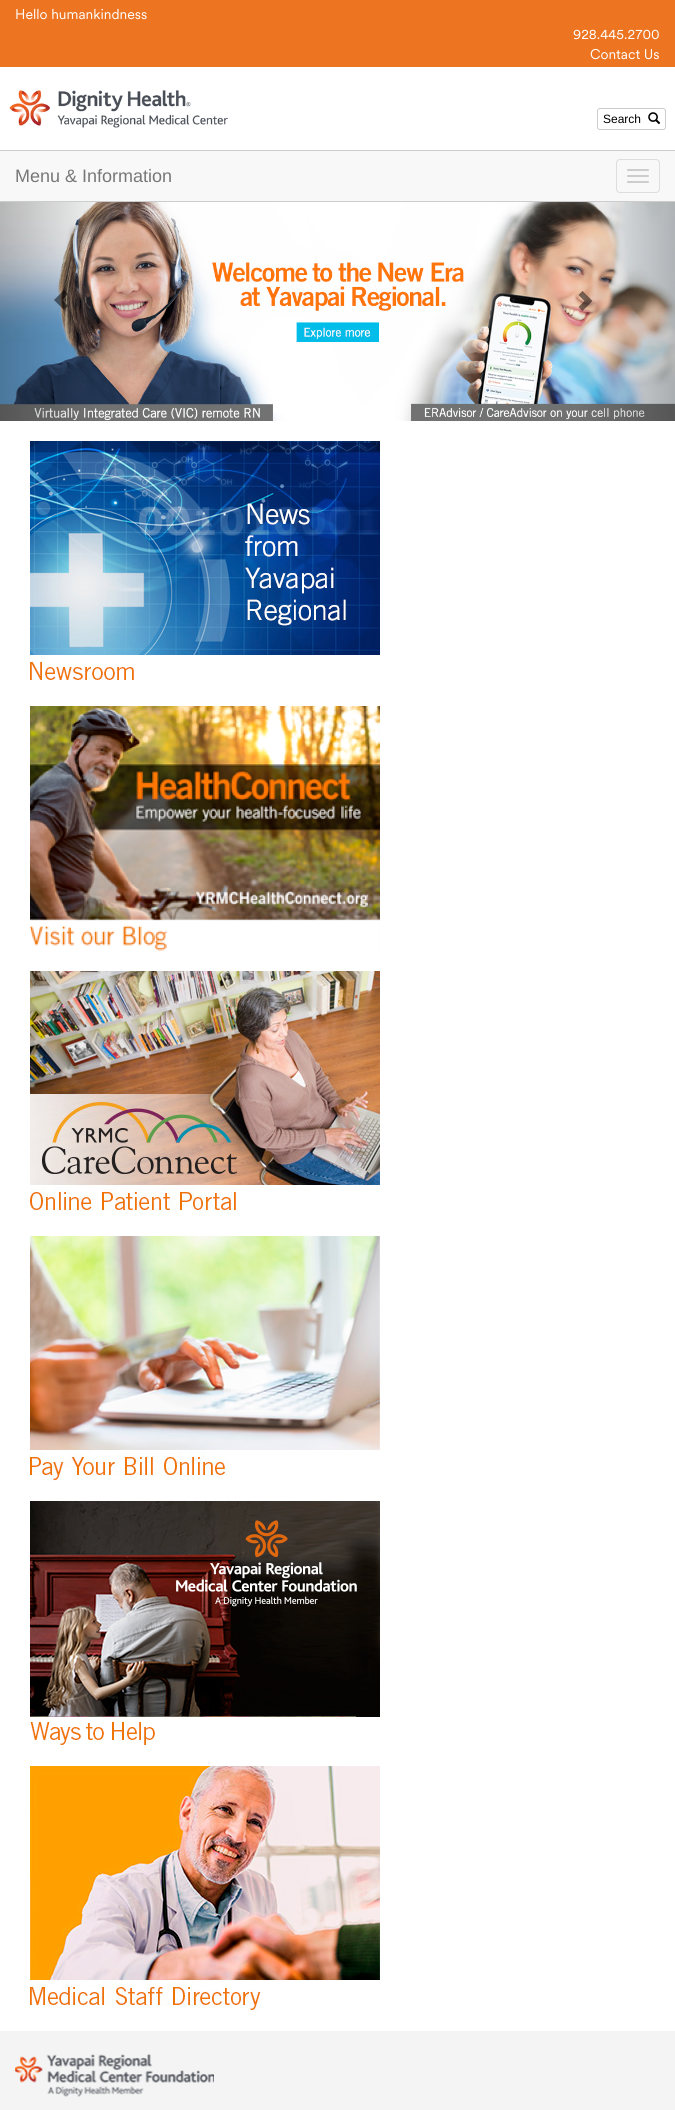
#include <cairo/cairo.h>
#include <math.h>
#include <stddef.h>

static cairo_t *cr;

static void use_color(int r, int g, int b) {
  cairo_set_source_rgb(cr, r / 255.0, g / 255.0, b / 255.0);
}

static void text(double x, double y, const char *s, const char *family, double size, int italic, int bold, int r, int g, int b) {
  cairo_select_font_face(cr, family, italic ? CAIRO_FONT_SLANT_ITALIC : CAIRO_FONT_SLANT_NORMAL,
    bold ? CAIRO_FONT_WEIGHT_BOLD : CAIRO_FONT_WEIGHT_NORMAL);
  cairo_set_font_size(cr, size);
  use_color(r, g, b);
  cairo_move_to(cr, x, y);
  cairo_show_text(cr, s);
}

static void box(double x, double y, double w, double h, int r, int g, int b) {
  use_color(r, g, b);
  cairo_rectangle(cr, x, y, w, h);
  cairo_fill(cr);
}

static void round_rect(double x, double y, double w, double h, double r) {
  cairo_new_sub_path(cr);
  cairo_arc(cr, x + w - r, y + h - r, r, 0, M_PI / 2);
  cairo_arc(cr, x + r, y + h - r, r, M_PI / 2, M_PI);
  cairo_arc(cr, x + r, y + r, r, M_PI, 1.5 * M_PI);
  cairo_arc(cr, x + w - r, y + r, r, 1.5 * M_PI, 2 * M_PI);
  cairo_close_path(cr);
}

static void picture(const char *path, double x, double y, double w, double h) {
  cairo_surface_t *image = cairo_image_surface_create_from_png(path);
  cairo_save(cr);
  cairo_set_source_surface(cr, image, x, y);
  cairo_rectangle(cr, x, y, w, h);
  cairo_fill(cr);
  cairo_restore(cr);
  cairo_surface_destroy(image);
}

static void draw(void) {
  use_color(255, 255, 255);
  cairo_paint(cr);
  box(0, 0, 675, 67, 237, 116, 32);
  picture("img_01.png", 9, 90, 219, 38);
  round_rect(597.5, 108.5, 68, 21, 2.5);
  use_color(204, 204, 204);
  cairo_set_line_width(cr, 1);
  cairo_stroke(cr);
  picture("img_02.png", 648, 112, 13, 13);
  box(0, 151, 675, 50, 248, 248, 248);
  box(0, 150, 675, 1, 204, 204, 204);
  box(0, 201, 675, 1, 204, 204, 204);
  round_rect(616.5, 159.5, 43, 33, 3.5);
  use_color(221, 221, 221);
  cairo_stroke(cr);
  use_color(204, 204, 204);
  round_rect(627, 169, 22, 2, 1);
  cairo_fill(cr);
  round_rect(627, 175, 22, 2, 1);
  cairo_fill(cr);
  round_rect(627, 181, 22, 2, 1);
  cairo_fill(cr);
  picture("img_03.png", 0, 202, 675, 219);
  cairo_set_source_rgba(cr, 0, 0, 0, 0.5);
  cairo_new_path(cr);
  cairo_move_to(cr, 54, 300);
  cairo_line_to(cr, 64, 310);
  cairo_line_to(cr, 68, 306);
  cairo_line_to(cr, 62, 300);
  cairo_line_to(cr, 68, 294);
  cairo_line_to(cr, 64, 290);
  cairo_close_path(cr);
  cairo_fill(cr);
  cairo_new_path(cr);
  cairo_move_to(cr, 578.5, 307);
  cairo_line_to(cr, 584.5, 301);
  cairo_line_to(cr, 578.5, 295);
  cairo_line_to(cr, 582.5, 291);
  cairo_line_to(cr, 592.5, 301);
  cairo_line_to(cr, 582.5, 311);
  cairo_close_path(cr);
  cairo_fill(cr);
  picture("img_04.png", 30, 441, 350, 239);
  picture("img_05.png", 30, 706, 350, 245);
  picture("img_06.png", 30, 971, 350, 240);
  picture("img_07.png", 30, 1236, 350, 245);
  picture("img_08.png", 30, 1501, 350, 244);
  picture("img_09.png", 30, 1766, 350, 245);
  box(0, 2031, 675, 79, 244, 244, 244);
  picture("img_10.png", 15, 2054, 199, 43);
  text(15, 19, "Hello humankindness", "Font", 14, 0, 0, 255, 255, 255);
  text(573, 39, "928.445.2700", "Font", 14, 0, 0, 255, 255, 255);
  text(590, 59, "Contact Us", "Font", 14, 0, 0, 255, 255, 255);
  text(603, 123, "Search", "Liberation Sans", 12, 0, 0, 0, 0, 0);
  text(15, 182, "Menu & Information", "Liberation Sans", 18, 0, 0, 119, 119, 119);
}

int main(void) {
  cairo_surface_t *surface = cairo_image_surface_create(CAIRO_FORMAT_RGB24, 675, 2110);
  cr = cairo_create(surface);
  cairo_font_options_t *options = cairo_font_options_create();
  cairo_font_options_set_hint_metrics(options, CAIRO_HINT_METRICS_OFF);
  cairo_font_options_set_hint_style(options, CAIRO_HINT_STYLE_NONE);
  cairo_set_font_options(cr, options);
  cairo_set_miter_limit(cr, 4);
  draw();
  cairo_surface_write_to_png(surface, "out.png");
  cairo_font_options_destroy(options);
  cairo_destroy(cr);
  cairo_surface_destroy(surface);
  return 0;
}
